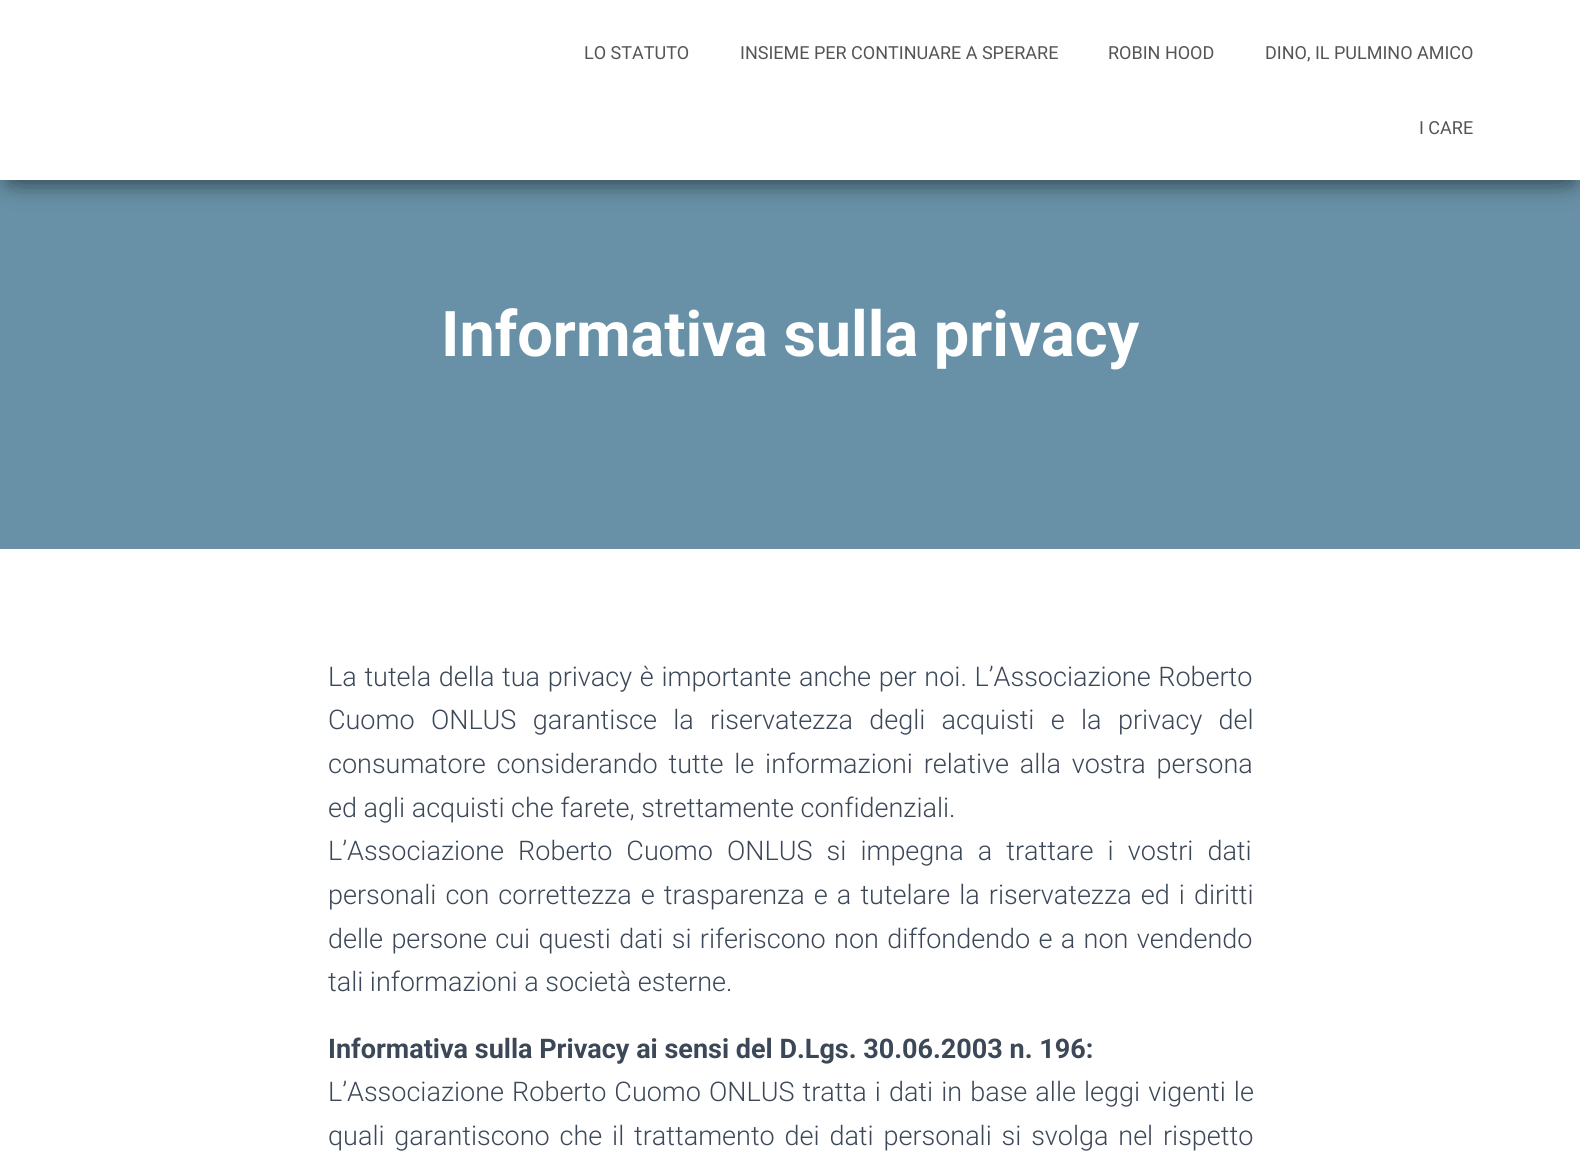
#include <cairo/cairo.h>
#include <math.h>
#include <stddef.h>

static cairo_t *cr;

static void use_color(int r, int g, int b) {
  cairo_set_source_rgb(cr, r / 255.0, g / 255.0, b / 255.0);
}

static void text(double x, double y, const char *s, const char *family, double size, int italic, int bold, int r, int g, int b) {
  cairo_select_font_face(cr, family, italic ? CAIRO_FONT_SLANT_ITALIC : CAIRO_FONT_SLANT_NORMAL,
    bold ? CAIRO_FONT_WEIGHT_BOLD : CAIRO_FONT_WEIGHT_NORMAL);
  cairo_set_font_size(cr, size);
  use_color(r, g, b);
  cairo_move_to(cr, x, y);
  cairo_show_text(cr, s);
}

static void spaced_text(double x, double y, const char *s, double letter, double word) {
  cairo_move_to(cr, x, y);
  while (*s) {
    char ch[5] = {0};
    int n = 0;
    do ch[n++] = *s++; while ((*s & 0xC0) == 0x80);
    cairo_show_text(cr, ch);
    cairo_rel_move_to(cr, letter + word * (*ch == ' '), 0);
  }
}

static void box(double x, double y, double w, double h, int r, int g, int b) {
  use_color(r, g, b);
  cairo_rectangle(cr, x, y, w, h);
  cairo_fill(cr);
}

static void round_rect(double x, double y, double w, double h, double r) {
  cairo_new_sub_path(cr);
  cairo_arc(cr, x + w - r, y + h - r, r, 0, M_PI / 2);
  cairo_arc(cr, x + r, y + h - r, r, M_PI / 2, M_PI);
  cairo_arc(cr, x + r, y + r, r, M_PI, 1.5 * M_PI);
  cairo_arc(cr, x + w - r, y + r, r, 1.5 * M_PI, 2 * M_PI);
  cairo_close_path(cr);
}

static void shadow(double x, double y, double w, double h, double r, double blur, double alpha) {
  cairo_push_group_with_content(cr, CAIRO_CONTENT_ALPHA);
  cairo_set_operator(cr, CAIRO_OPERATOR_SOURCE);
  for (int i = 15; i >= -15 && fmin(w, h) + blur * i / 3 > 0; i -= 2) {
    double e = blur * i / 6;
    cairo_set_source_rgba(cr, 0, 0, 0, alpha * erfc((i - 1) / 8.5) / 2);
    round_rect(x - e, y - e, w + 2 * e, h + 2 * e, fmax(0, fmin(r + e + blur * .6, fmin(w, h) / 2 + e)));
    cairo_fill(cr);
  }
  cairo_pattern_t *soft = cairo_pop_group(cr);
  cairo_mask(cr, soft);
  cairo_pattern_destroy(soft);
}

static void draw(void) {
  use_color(104, 145, 167);
  cairo_paint(cr);
  use_color(0, 0, 0);
  shadow(8, 20, 1566, 165, 0, 7.5, 0.2);
  shadow(0, 5, 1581, 180, 0, 15, 0.12);
  shadow(18, 33, 1545, 144, 0, 15, 0.42);
  box(0, 0, 1580, 180, 255, 255, 255);
  box(0, 549, 1580, 623, 255, 255, 255);
  text(584, 59, "LO STATUTO", "Roboto", 18, 0, 0, 85, 85, 85);
  text(740, 59, "INSIEME PER CONTINUARE A SPERARE", "Roboto", 18, 0, 0, 85, 85, 85);
  text(1108, 59, "ROBIN HOOD", "Roboto", 18, 0, 0, 85, 85, 85);
  text(1265, 59, "DINO, IL PULMINO AMICO", "Roboto", 18, 0, 0, 85, 85, 85);
  text(1419, 134, "I CARE", "Roboto", 18, 0, 0, 85, 85, 85);
  text(441, 356, "Informativa sulla privacy", "Roboto", 63, 0, 1, 255, 255, 255);
  cairo_select_font_face(cr, "Roboto Light", CAIRO_FONT_SLANT_NORMAL, CAIRO_FONT_WEIGHT_NORMAL);
  cairo_set_font_size(cr, 27);
  use_color(60, 72, 88);
  spaced_text(328, 686, "La tutela della tua privacy è importante anche per noi. L’Associazione Roberto", 0, 1.1);
  spaced_text(328, 729, "Cuomo ONLUS garantisce la riservatezza degli acquisti e la privacy del", 0, 9.75);
  spaced_text(328, 773, "consumatore considerando tutte le informazioni relative alla vostra persona", 0, 4.25);
  text(328, 817, "ed agli acquisti che farete, strettamente confidenziali.", "Roboto Light", 27, 0, 0, 60, 72, 88);
  spaced_text(328, 860, "L’Associazione Roberto Cuomo ONLUS si impegna a trattare i vostri dati", 0, 7.5);
  spaced_text(328, 904, "personali con correttezza e trasparenza e a tutelare la riservatezza ed i diritti", 0, 2.5);
  spaced_text(328, 948, "delle persone cui questi dati si riferiscono non diffondendo e a non vendendo", 0, 1.75);
  text(328, 991, "tali informazioni a società esterne.", "Roboto Light", 27, 0, 0, 60, 72, 88);
  text(328, 1058, "Informativa sulla Privacy ai sensi del D.Lgs. 30.06.2003 n. 196:", "Roboto", 27, 0, 1, 60, 72, 88);
  cairo_select_font_face(cr, "Roboto Light", CAIRO_FONT_SLANT_NORMAL, CAIRO_FONT_WEIGHT_NORMAL);
  spaced_text(328, 1101, "L’Associazione Roberto Cuomo ONLUS tratta i dati in base alle leggi vigenti le", 0, 1.5);
  spaced_text(328, 1145, "quali garantiscono che il trattamento dei dati personali si svolga nel rispetto", 0, 3.25);
}

int main(void) {
  cairo_surface_t *surface = cairo_image_surface_create(CAIRO_FORMAT_RGB24, 1580, 1172);
  cr = cairo_create(surface);
  cairo_font_options_t *options = cairo_font_options_create();
  cairo_font_options_set_hint_metrics(options, CAIRO_HINT_METRICS_OFF);
  cairo_font_options_set_hint_style(options, CAIRO_HINT_STYLE_NONE);
  cairo_set_font_options(cr, options);
  cairo_set_miter_limit(cr, 4);
  draw();
  cairo_surface_write_to_png(surface, "out.png");
  cairo_font_options_destroy(options);
  cairo_destroy(cr);
  cairo_surface_destroy(surface);
  return 0;
}
